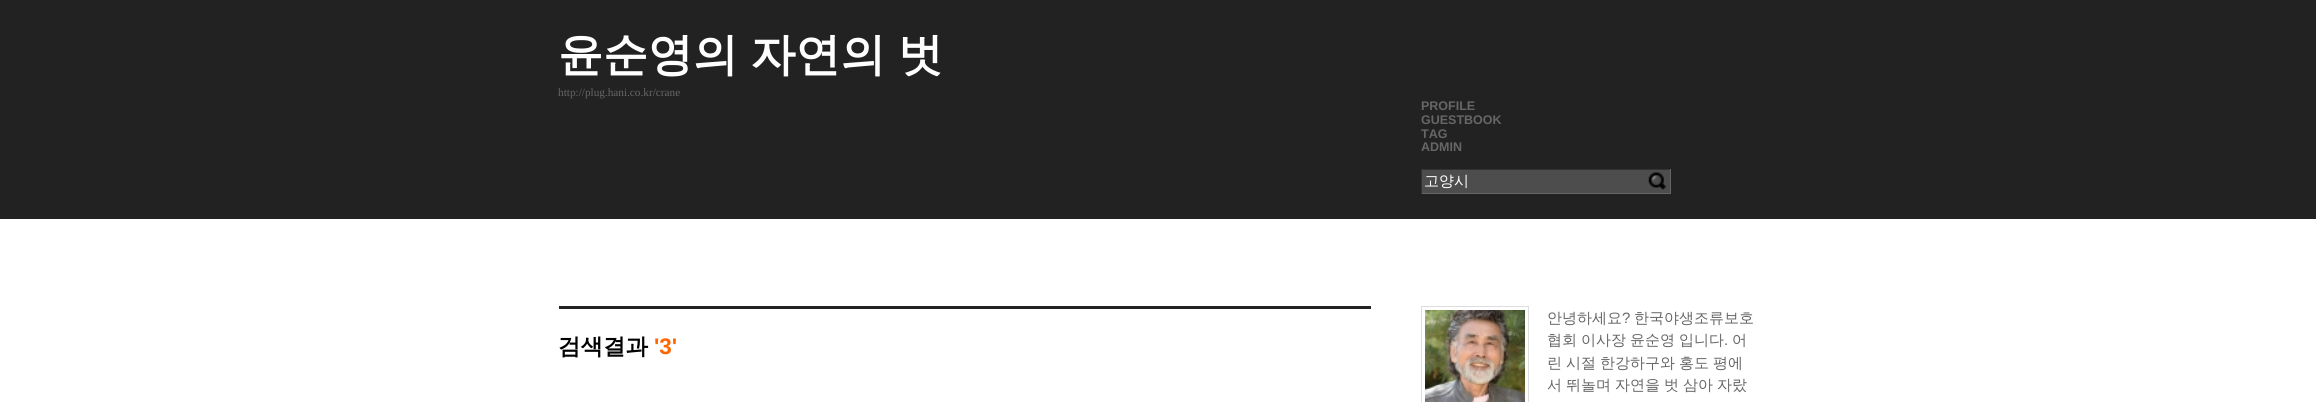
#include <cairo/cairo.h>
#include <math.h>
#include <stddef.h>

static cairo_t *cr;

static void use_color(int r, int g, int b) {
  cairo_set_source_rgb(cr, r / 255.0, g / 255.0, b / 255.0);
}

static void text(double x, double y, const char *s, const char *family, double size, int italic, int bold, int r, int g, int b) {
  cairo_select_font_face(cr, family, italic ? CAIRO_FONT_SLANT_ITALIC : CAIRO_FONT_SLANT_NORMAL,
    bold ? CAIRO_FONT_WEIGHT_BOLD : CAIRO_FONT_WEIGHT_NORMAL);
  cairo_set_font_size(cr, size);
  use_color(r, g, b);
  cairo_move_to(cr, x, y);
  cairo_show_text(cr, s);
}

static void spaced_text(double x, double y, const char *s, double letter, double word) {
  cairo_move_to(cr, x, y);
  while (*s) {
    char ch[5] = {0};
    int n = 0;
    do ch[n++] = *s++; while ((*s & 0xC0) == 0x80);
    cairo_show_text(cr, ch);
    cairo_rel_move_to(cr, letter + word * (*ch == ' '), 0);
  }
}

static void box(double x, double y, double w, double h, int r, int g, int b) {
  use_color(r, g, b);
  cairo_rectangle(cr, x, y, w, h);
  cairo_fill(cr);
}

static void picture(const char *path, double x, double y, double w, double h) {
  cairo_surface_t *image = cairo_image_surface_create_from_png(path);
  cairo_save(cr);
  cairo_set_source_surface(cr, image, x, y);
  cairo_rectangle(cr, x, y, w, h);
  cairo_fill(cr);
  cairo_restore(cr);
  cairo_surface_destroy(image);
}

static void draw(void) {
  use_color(255, 255, 255);
  cairo_paint(cr);
  box(0, 0, 2316, 219, 34, 34, 34);
  box(1422, 170, 248, 23, 77, 77, 77);
  box(1421, 169, 250, 1, 51, 51, 51);
  box(1670, 169, 1, 25, 102, 102, 102);
  box(1421, 193, 250, 1, 102, 102, 102);
  box(1421, 169, 1, 25, 51, 51, 51);
  picture("img_01.png", 1648, 172, 19, 18);
  box(559, 306, 812, 3, 34, 34, 34);
  cairo_rectangle(cr, 1421.5, 306.5, 107, 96);
  use_color(221, 221, 221);
  cairo_set_line_width(cr, 1);
  cairo_stroke(cr);
  picture("img_02.png", 1425, 310, 100, 92);
  cairo_select_font_face(cr, "WenQuanYi Zen Hei", CAIRO_FONT_SLANT_NORMAL, CAIRO_FONT_WEIGHT_BOLD);
  cairo_set_font_size(cr, 45);
  use_color(255, 255, 255);
  spaced_text(558, 70, "윤순영의 자연의 벗", 0, -1);
  text(558, 96, "http://plug.hani.co.kr/crane", "Liberation Serif", 11.25, 0, 0, 102, 102, 102);
  text(1421, 110, "PROFILE", "Liberation Sans", 12.5, 0, 1, 102, 102, 102);
  text(1421, 124, "GUESTBOOK", "Liberation Sans", 12.5, 0, 1, 102, 102, 102);
  text(1421, 138, "TAG", "Liberation Sans", 12.5, 0, 1, 102, 102, 102);
  text(1421, 151, "ADMIN", "Liberation Sans", 12.5, 0, 1, 102, 102, 102);
  text(1424, 186, "고양시", "WenQuanYi Zen Hei Medium", 15, 0, 0, 255, 255, 255);
  text(558, 354, "검색결과", "WenQuanYi Zen Hei", 22.5, 0, 1, 0, 0, 0);
  text(654, 354, "'3'", "Liberation Sans", 22.5, 0, 1, 255, 102, 0);
  text(1547, 323, "안녕하세요", "WenQuanYi Zen Hei Medium", 15, 0, 0, 102, 102, 102);
  text(1622, 323, "?", "Liberation Sans", 15, 0, 0, 102, 102, 102);
  text(1634, 323, "한국야생조류보호", "WenQuanYi Zen Hei Medium", 15, 0, 0, 102, 102, 102);
  spaced_text(1547, 345, "협회 이사장 윤순영 입니다", 0, -0.5);
  text(1724, 345, ".", "Liberation Sans", 15, 0, 0, 102, 102, 102);
  text(1732, 345, "어", "WenQuanYi Zen Hei Medium", 15, 0, 0, 102, 102, 102);
  spaced_text(1547, 368, "린 시절 한강하구와 홍도 평에", 0, -0.5);
  spaced_text(1547, 390, "서 뛰놀며 자연을 벗 삼아 자랐", 0, -0.5);
}

int main(void) {
  cairo_surface_t *surface = cairo_image_surface_create(CAIRO_FORMAT_RGB24, 2316, 402);
  cr = cairo_create(surface);
  cairo_font_options_t *options = cairo_font_options_create();
  cairo_font_options_set_hint_metrics(options, CAIRO_HINT_METRICS_OFF);
  cairo_font_options_set_hint_style(options, CAIRO_HINT_STYLE_NONE);
  cairo_set_font_options(cr, options);
  cairo_set_miter_limit(cr, 4);
  draw();
  cairo_surface_write_to_png(surface, "out.png");
  cairo_font_options_destroy(options);
  cairo_destroy(cr);
  cairo_surface_destroy(surface);
  return 0;
}
